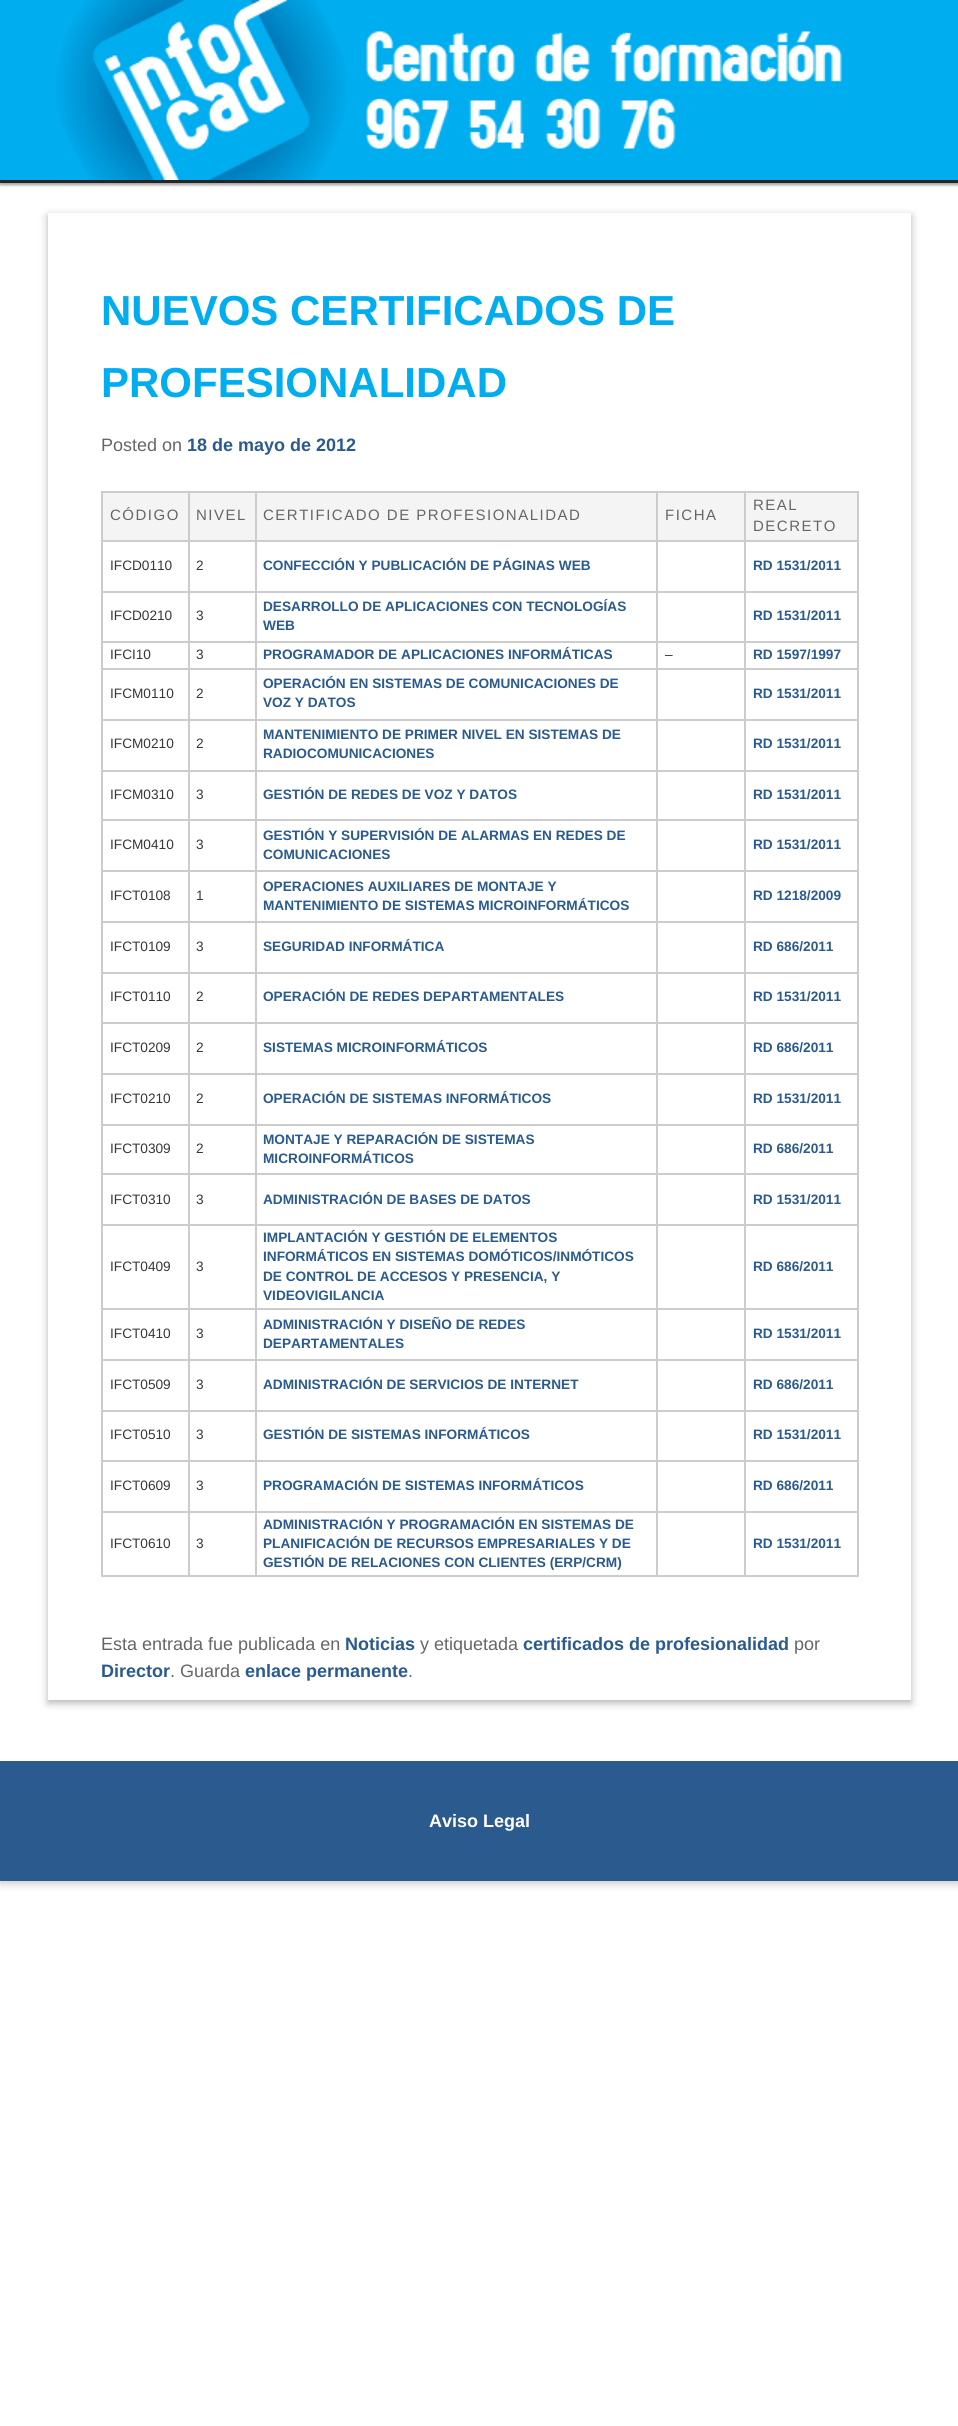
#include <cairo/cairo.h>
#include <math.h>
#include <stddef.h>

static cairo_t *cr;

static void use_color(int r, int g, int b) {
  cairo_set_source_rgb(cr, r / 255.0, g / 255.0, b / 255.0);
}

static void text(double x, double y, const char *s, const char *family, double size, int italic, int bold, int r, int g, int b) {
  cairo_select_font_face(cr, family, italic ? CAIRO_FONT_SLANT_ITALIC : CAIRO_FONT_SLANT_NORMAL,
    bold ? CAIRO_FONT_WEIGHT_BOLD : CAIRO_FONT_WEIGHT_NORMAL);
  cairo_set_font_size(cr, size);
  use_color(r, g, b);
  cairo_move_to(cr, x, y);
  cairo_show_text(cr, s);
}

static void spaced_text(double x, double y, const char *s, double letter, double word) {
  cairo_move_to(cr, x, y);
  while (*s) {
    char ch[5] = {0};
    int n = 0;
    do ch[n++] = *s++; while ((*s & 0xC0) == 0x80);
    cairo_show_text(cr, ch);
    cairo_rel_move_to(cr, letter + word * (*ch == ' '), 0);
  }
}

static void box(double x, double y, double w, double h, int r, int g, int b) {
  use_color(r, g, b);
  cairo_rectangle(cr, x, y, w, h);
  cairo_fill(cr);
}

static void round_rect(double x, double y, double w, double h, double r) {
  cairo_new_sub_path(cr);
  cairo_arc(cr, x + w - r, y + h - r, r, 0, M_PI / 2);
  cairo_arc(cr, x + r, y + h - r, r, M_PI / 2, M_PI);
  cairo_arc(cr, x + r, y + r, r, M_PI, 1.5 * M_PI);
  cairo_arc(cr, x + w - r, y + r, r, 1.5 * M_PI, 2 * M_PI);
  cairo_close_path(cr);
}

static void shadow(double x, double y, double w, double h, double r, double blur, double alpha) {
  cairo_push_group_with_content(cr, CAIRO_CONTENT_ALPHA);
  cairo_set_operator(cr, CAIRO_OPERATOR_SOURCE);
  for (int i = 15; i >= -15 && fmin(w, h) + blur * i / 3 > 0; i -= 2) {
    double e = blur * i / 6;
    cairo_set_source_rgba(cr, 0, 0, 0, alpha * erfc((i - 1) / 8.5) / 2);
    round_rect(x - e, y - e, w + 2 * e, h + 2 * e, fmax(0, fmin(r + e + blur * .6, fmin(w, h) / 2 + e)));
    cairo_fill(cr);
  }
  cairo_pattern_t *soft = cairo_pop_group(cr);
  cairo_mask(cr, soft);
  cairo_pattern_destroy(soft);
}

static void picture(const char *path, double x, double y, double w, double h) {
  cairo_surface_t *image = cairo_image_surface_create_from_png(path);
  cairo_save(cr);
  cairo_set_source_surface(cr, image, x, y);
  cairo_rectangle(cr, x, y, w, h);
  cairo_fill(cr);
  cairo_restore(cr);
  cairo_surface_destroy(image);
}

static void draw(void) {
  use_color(255, 255, 255);
  cairo_paint(cr);
  cairo_save(cr);
  cairo_rectangle(cr, 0, 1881, 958, 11);
  cairo_clip(cr);
  use_color(204, 204, 204);
  shadow(0, 3, 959, 1881, 0, 4, 1);
  cairo_restore(cr);
  box(0, 0, 958, 180, 0, 174, 239);
  picture("img_01.png", 366, 31, 476, 118);
  use_color(0, 0, 0);
  shadow(0, 182, 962, 3, 0, 1.5, 0.4);
  picture("img_02.png", 51, 0, 309, 180);
  box(0, 180, 958, 3, 37, 37, 37);
  use_color(179, 179, 179);
  shadow(48, 216, 863, 1487, 0, 4, 1);
  box(48, 213, 863, 1487, 255, 255, 255);
  box(103, 493, 85, 47, 244, 244, 244);
  box(744, 491, 114, 2, 204, 204, 204);
  box(857, 540, 2, 1037, 204, 204, 204);
  box(857, 491, 2, 51, 204, 204, 204);
  box(744, 1575, 114, 2, 204, 204, 204);
  box(744, 1511, 2, 66, 204, 204, 204);
  box(744, 1511, 114, 2, 204, 204, 204);
  box(744, 1460, 2, 52, 204, 204, 204);
  box(744, 1460, 114, 2, 204, 204, 204);
  box(744, 1410, 2, 51, 204, 204, 204);
  box(744, 1410, 114, 2, 204, 204, 204);
  box(744, 1359, 2, 53, 204, 204, 204);
  box(744, 1359, 114, 2, 204, 204, 204);
  box(744, 1308, 2, 53, 204, 204, 204);
  box(744, 1308, 114, 2, 204, 204, 204);
  box(744, 1224, 2, 86, 204, 204, 204);
  box(744, 1224, 114, 2, 204, 204, 204);
  box(744, 1173, 2, 53, 204, 204, 204);
  box(744, 1173, 114, 2, 204, 204, 204);
  box(744, 1124, 2, 51, 204, 204, 204);
  box(744, 1124, 114, 2, 204, 204, 204);
  box(744, 1073, 2, 52, 204, 204, 204);
  box(744, 1073, 114, 2, 204, 204, 204);
  box(744, 1022, 2, 52, 204, 204, 204);
  box(744, 1022, 114, 2, 204, 204, 204);
  box(744, 972, 2, 51, 204, 204, 204);
  box(744, 972, 114, 2, 204, 204, 204);
  box(744, 921, 2, 53, 204, 204, 204);
  box(744, 921, 114, 2, 204, 204, 204);
  box(744, 870, 2, 53, 204, 204, 204);
  box(744, 870, 114, 2, 204, 204, 204);
  box(744, 819, 2, 53, 204, 204, 204);
  box(744, 819, 114, 2, 204, 204, 204);
  box(744, 770, 2, 51, 204, 204, 204);
  box(744, 770, 114, 2, 204, 204, 204);
  box(744, 719, 2, 52, 204, 204, 204);
  box(744, 719, 114, 2, 204, 204, 204);
  box(744, 668, 2, 52, 204, 204, 204);
  box(744, 668, 114, 2, 204, 204, 204);
  box(744, 641, 2, 28, 204, 204, 204);
  box(744, 641, 114, 2, 204, 204, 204);
  box(744, 591, 2, 51, 204, 204, 204);
  box(744, 591, 114, 2, 204, 204, 204);
  box(744, 540, 2, 53, 204, 204, 204);
  box(744, 540, 114, 2, 204, 204, 204);
  box(744, 491, 2, 51, 204, 204, 204);
  box(656, 491, 90, 2, 204, 204, 204);
  box(656, 1575, 90, 2, 204, 204, 204);
  box(656, 1511, 2, 66, 204, 204, 204);
  box(656, 1511, 90, 2, 204, 204, 204);
  box(656, 1460, 2, 52, 204, 204, 204);
  box(656, 1460, 90, 2, 204, 204, 204);
  box(656, 1410, 2, 51, 204, 204, 204);
  box(656, 1410, 90, 2, 204, 204, 204);
  box(656, 1359, 2, 53, 204, 204, 204);
  box(656, 1359, 90, 2, 204, 204, 204);
  box(656, 1308, 2, 53, 204, 204, 204);
  box(656, 1308, 90, 2, 204, 204, 204);
  box(656, 1224, 2, 86, 204, 204, 204);
  box(656, 1224, 90, 2, 204, 204, 204);
  box(656, 1173, 2, 53, 204, 204, 204);
  box(656, 1173, 90, 2, 204, 204, 204);
  box(656, 1124, 2, 51, 204, 204, 204);
  box(656, 1124, 90, 2, 204, 204, 204);
  box(656, 1073, 2, 52, 204, 204, 204);
  box(656, 1073, 90, 2, 204, 204, 204);
  box(656, 1022, 2, 52, 204, 204, 204);
  box(656, 1022, 90, 2, 204, 204, 204);
  box(656, 972, 2, 51, 204, 204, 204);
  box(656, 972, 90, 2, 204, 204, 204);
  box(656, 921, 2, 53, 204, 204, 204);
  box(656, 921, 90, 2, 204, 204, 204);
  box(656, 870, 2, 53, 204, 204, 204);
  box(656, 870, 90, 2, 204, 204, 204);
  box(656, 819, 2, 53, 204, 204, 204);
  box(656, 819, 90, 2, 204, 204, 204);
  box(656, 770, 2, 51, 204, 204, 204);
  box(656, 770, 90, 2, 204, 204, 204);
  box(656, 719, 2, 52, 204, 204, 204);
  box(656, 719, 90, 2, 204, 204, 204);
  box(656, 668, 2, 52, 204, 204, 204);
  box(656, 668, 90, 2, 204, 204, 204);
  box(656, 641, 2, 28, 204, 204, 204);
  box(656, 641, 90, 2, 204, 204, 204);
  box(656, 591, 2, 51, 204, 204, 204);
  box(656, 591, 90, 2, 204, 204, 204);
  box(656, 540, 2, 53, 204, 204, 204);
  box(656, 540, 90, 2, 204, 204, 204);
  box(656, 491, 2, 51, 204, 204, 204);
  box(255, 491, 402, 2, 204, 204, 204);
  box(255, 1575, 402, 2, 204, 204, 204);
  box(255, 1511, 2, 66, 204, 204, 204);
  box(255, 1511, 402, 2, 204, 204, 204);
  box(255, 1460, 2, 52, 204, 204, 204);
  box(255, 1460, 402, 2, 204, 204, 204);
  box(255, 1410, 2, 51, 204, 204, 204);
  box(255, 1410, 402, 2, 204, 204, 204);
  box(255, 1359, 2, 53, 204, 204, 204);
  box(255, 1359, 402, 2, 204, 204, 204);
  box(255, 1308, 2, 53, 204, 204, 204);
  box(255, 1308, 402, 2, 204, 204, 204);
  box(255, 1224, 2, 86, 204, 204, 204);
  box(255, 1224, 402, 2, 204, 204, 204);
  box(255, 1173, 2, 53, 204, 204, 204);
  box(255, 1173, 402, 2, 204, 204, 204);
  box(255, 1124, 2, 51, 204, 204, 204);
  box(255, 1124, 402, 2, 204, 204, 204);
  box(255, 1073, 2, 52, 204, 204, 204);
  box(255, 1073, 402, 2, 204, 204, 204);
  box(255, 1022, 2, 52, 204, 204, 204);
  box(255, 1022, 402, 2, 204, 204, 204);
  box(255, 972, 2, 51, 204, 204, 204);
  box(255, 972, 402, 2, 204, 204, 204);
  box(255, 921, 2, 53, 204, 204, 204);
  box(255, 921, 402, 2, 204, 204, 204);
  box(255, 870, 2, 53, 204, 204, 204);
  box(255, 870, 402, 2, 204, 204, 204);
  box(255, 819, 2, 53, 204, 204, 204);
  box(255, 819, 402, 2, 204, 204, 204);
  box(255, 770, 2, 51, 204, 204, 204);
  box(255, 770, 402, 2, 204, 204, 204);
  box(255, 719, 2, 52, 204, 204, 204);
  box(255, 719, 402, 2, 204, 204, 204);
  box(255, 668, 2, 52, 204, 204, 204);
  box(255, 668, 402, 2, 204, 204, 204);
  box(255, 641, 2, 28, 204, 204, 204);
  box(255, 641, 402, 2, 204, 204, 204);
  box(255, 591, 2, 51, 204, 204, 204);
  box(255, 591, 402, 2, 204, 204, 204);
  box(255, 540, 2, 53, 204, 204, 204);
  box(255, 540, 402, 2, 204, 204, 204);
  box(255, 491, 2, 51, 204, 204, 204);
  box(188, 491, 69, 2, 204, 204, 204);
  box(188, 1575, 69, 2, 204, 204, 204);
  box(188, 1511, 2, 66, 204, 204, 204);
  box(188, 1511, 69, 2, 204, 204, 204);
  box(188, 1460, 2, 52, 204, 204, 204);
  box(188, 1460, 69, 2, 204, 204, 204);
  box(188, 1410, 2, 51, 204, 204, 204);
  box(188, 1410, 69, 2, 204, 204, 204);
  box(188, 1359, 2, 53, 204, 204, 204);
  box(188, 1359, 69, 2, 204, 204, 204);
  box(188, 1308, 2, 53, 204, 204, 204);
  box(188, 1308, 69, 2, 204, 204, 204);
  box(188, 1224, 2, 86, 204, 204, 204);
  box(188, 1224, 69, 2, 204, 204, 204);
  box(188, 1173, 2, 53, 204, 204, 204);
  box(188, 1173, 69, 2, 204, 204, 204);
  box(188, 1124, 2, 51, 204, 204, 204);
  box(188, 1124, 69, 2, 204, 204, 204);
  box(188, 1073, 2, 52, 204, 204, 204);
  box(188, 1073, 69, 2, 204, 204, 204);
  box(188, 1022, 2, 52, 204, 204, 204);
  box(188, 1022, 69, 2, 204, 204, 204);
  box(188, 972, 2, 51, 204, 204, 204);
  box(188, 972, 69, 2, 204, 204, 204);
  box(188, 921, 2, 53, 204, 204, 204);
  box(188, 921, 69, 2, 204, 204, 204);
  box(188, 870, 2, 53, 204, 204, 204);
  box(188, 870, 69, 2, 204, 204, 204);
  box(188, 819, 2, 53, 204, 204, 204);
  box(188, 819, 69, 2, 204, 204, 204);
  box(188, 770, 2, 51, 204, 204, 204);
  box(188, 770, 69, 2, 204, 204, 204);
  box(188, 719, 2, 52, 204, 204, 204);
  box(188, 719, 69, 2, 204, 204, 204);
  box(188, 668, 2, 52, 204, 204, 204);
  box(188, 668, 69, 2, 204, 204, 204);
  box(188, 641, 2, 28, 204, 204, 204);
  box(188, 641, 69, 2, 204, 204, 204);
  box(188, 591, 2, 51, 204, 204, 204);
  box(188, 591, 69, 2, 204, 204, 204);
  box(188, 540, 2, 53, 204, 204, 204);
  box(188, 540, 69, 2, 204, 204, 204);
  box(188, 491, 2, 51, 204, 204, 204);
  box(101, 491, 88, 2, 204, 204, 204);
  box(101, 1575, 88, 2, 204, 204, 204);
  box(101, 1511, 2, 66, 204, 204, 204);
  box(101, 1511, 88, 2, 204, 204, 204);
  box(101, 1460, 2, 52, 204, 204, 204);
  box(101, 1460, 88, 2, 204, 204, 204);
  box(101, 1410, 2, 51, 204, 204, 204);
  box(101, 1410, 88, 2, 204, 204, 204);
  box(101, 1359, 2, 53, 204, 204, 204);
  box(101, 1359, 88, 2, 204, 204, 204);
  box(101, 1308, 2, 53, 204, 204, 204);
  box(101, 1308, 88, 2, 204, 204, 204);
  box(101, 1224, 2, 86, 204, 204, 204);
  box(101, 1224, 88, 2, 204, 204, 204);
  box(101, 1173, 2, 53, 204, 204, 204);
  box(101, 1173, 88, 2, 204, 204, 204);
  box(101, 1124, 2, 51, 204, 204, 204);
  box(101, 1124, 88, 2, 204, 204, 204);
  box(101, 1073, 2, 52, 204, 204, 204);
  box(101, 1073, 88, 2, 204, 204, 204);
  box(101, 1022, 2, 52, 204, 204, 204);
  box(101, 1022, 88, 2, 204, 204, 204);
  box(101, 972, 2, 51, 204, 204, 204);
  box(101, 972, 88, 2, 204, 204, 204);
  box(101, 921, 2, 53, 204, 204, 204);
  box(101, 921, 88, 2, 204, 204, 204);
  box(101, 870, 2, 53, 204, 204, 204);
  box(101, 870, 88, 2, 204, 204, 204);
  box(101, 819, 2, 53, 204, 204, 204);
  box(101, 819, 88, 2, 204, 204, 204);
  box(101, 770, 2, 51, 204, 204, 204);
  box(101, 770, 88, 2, 204, 204, 204);
  box(101, 719, 2, 52, 204, 204, 204);
  box(101, 719, 88, 2, 204, 204, 204);
  box(101, 668, 2, 52, 204, 204, 204);
  box(101, 668, 88, 2, 204, 204, 204);
  box(101, 641, 2, 28, 204, 204, 204);
  box(101, 641, 88, 2, 204, 204, 204);
  box(101, 591, 2, 51, 204, 204, 204);
  box(101, 591, 88, 2, 204, 204, 204);
  box(101, 540, 2, 53, 204, 204, 204);
  box(101, 540, 88, 2, 204, 204, 204);
  box(101, 491, 2, 51, 204, 204, 204);
  box(190, 493, 65, 47, 244, 244, 244);
  box(257, 493, 399, 47, 244, 244, 244);
  box(658, 493, 86, 47, 244, 244, 244);
  box(746, 493, 111, 47, 244, 244, 244);
  box(0, 1761, 958, 120, 42, 90, 142);
  text(101, 325, "NUEVOS CERTIFICADOS DE", "Liberation Sans", 42, 0, 1, 0, 173, 239);
  text(101, 397, "PROFESIONALIDAD", "Liberation Sans", 42, 0, 1, 0, 173, 239);
  text(101, 451, "Posted on", "Liberation Sans", 18, 0, 0, 102, 102, 102);
  text(187, 451, "18 de mayo de 2012", "Liberation Sans", 18, 0, 1, 42, 90, 142);
  cairo_select_font_face(cr, "Liberation Sans", CAIRO_FONT_SLANT_NORMAL, CAIRO_FONT_WEIGHT_NORMAL);
  cairo_set_font_size(cr, 15);
  use_color(102, 102, 102);
  spaced_text(110, 520, "CÓDIGO", 1.5, 0);
  spaced_text(196, 520, "NIVEL", 1.5, 0);
  spaced_text(263, 520, "CERTIFICADO DE PROFESIONALIDAD", 1.5, 0);
  spaced_text(665, 520, "FICHA", 1.5, 0);
  spaced_text(753, 510, "REAL", 1.5, 0);
  spaced_text(753, 531, "DECRETO", 1.5, 0);
  text(110, 570, "IFCD0110", "Liberation Sans", 13.65, 0, 0, 55, 55, 55);
  text(196, 570, "2", "Liberation Sans", 13.65, 0, 0, 55, 55, 55);
  text(263, 570, "CONFECCIÓN Y PUBLICACIÓN DE PÁGINAS WEB", "Liberation Sans", 13.65, 0, 1, 42, 90, 142);
  text(753, 570, "RD 1531/2011", "Liberation Sans", 13.65, 0, 1, 42, 90, 142);
  text(110, 620, "IFCD0210", "Liberation Sans", 13.65, 0, 0, 55, 55, 55);
  text(196, 620, "3", "Liberation Sans", 13.65, 0, 0, 55, 55, 55);
  text(263, 611, "DESARROLLO DE APLICACIONES CON TECNOLOGÍAS", "Liberation Sans", 13.65, 0, 1, 42, 90, 142);
  text(263, 630, "WEB", "Liberation Sans", 13.65, 0, 1, 42, 90, 142);
  text(753, 620, "RD 1531/2011", "Liberation Sans", 13.65, 0, 1, 42, 90, 142);
  text(110, 659, "IFCI10", "Liberation Sans", 13.65, 0, 0, 55, 55, 55);
  text(196, 659, "3", "Liberation Sans", 13.65, 0, 0, 55, 55, 55);
  text(263, 659, "PROGRAMADOR DE APLICACIONES INFORMÁTICAS", "Liberation Sans", 13.65, 0, 1, 42, 90, 142);
  text(665, 659, "–", "Liberation Sans", 13.65, 0, 0, 55, 55, 55);
  text(753, 659, "RD 1597/1997", "Liberation Sans", 13.65, 0, 1, 42, 90, 142);
  text(110, 698, "IFCM0110", "Liberation Sans", 13.65, 0, 0, 55, 55, 55);
  text(196, 698, "2", "Liberation Sans", 13.65, 0, 0, 55, 55, 55);
  text(263, 688, "OPERACIÓN EN SISTEMAS DE COMUNICACIONES DE", "Liberation Sans", 13.65, 0, 1, 42, 90, 142);
  text(263, 707, "VOZ Y DATOS", "Liberation Sans", 13.65, 0, 1, 42, 90, 142);
  text(753, 698, "RD 1531/2011", "Liberation Sans", 13.65, 0, 1, 42, 90, 142);
  text(110, 748, "IFCM0210", "Liberation Sans", 13.65, 0, 0, 55, 55, 55);
  text(196, 748, "2", "Liberation Sans", 13.65, 0, 0, 55, 55, 55);
  text(263, 739, "MANTENIMIENTO DE PRIMER NIVEL EN SISTEMAS DE", "Liberation Sans", 13.65, 0, 1, 42, 90, 142);
  text(263, 758, "RADIOCOMUNICACIONES", "Liberation Sans", 13.65, 0, 1, 42, 90, 142);
  text(753, 748, "RD 1531/2011", "Liberation Sans", 13.65, 0, 1, 42, 90, 142);
  text(110, 799, "IFCM0310", "Liberation Sans", 13.65, 0, 0, 55, 55, 55);
  text(196, 799, "3", "Liberation Sans", 13.65, 0, 0, 55, 55, 55);
  text(263, 799, "GESTIÓN DE REDES DE VOZ Y DATOS", "Liberation Sans", 13.65, 0, 1, 42, 90, 142);
  text(753, 799, "RD 1531/2011", "Liberation Sans", 13.65, 0, 1, 42, 90, 142);
  text(110, 849, "IFCM0410", "Liberation Sans", 13.65, 0, 0, 55, 55, 55);
  text(196, 849, "3", "Liberation Sans", 13.65, 0, 0, 55, 55, 55);
  text(263, 840, "GESTIÓN Y SUPERVISIÓN DE ALARMAS EN REDES DE", "Liberation Sans", 13.65, 0, 1, 42, 90, 142);
  text(263, 859, "COMUNICACIONES", "Liberation Sans", 13.65, 0, 1, 42, 90, 142);
  text(753, 849, "RD 1531/2011", "Liberation Sans", 13.65, 0, 1, 42, 90, 142);
  text(110, 900, "IFCT0108", "Liberation Sans", 13.65, 0, 0, 55, 55, 55);
  text(196, 900, "1", "Liberation Sans", 13.65, 0, 0, 55, 55, 55);
  text(263, 891, "OPERACIONES AUXILIARES DE MONTAJE Y", "Liberation Sans", 13.65, 0, 1, 42, 90, 142);
  text(263, 910, "MANTENIMIENTO DE SISTEMAS MICROINFORMÁTICOS", "Liberation Sans", 13.65, 0, 1, 42, 90, 142);
  text(753, 900, "RD 1218/2009", "Liberation Sans", 13.65, 0, 1, 42, 90, 142);
  text(110, 951, "IFCT0109", "Liberation Sans", 13.65, 0, 0, 55, 55, 55);
  text(196, 951, "3", "Liberation Sans", 13.65, 0, 0, 55, 55, 55);
  text(263, 951, "SEGURIDAD INFORMÁTICA", "Liberation Sans", 13.65, 0, 1, 42, 90, 142);
  text(753, 951, "RD 686/2011", "Liberation Sans", 13.65, 0, 1, 42, 90, 142);
  text(110, 1001, "IFCT0110", "Liberation Sans", 13.65, 0, 0, 55, 55, 55);
  text(196, 1001, "2", "Liberation Sans", 13.65, 0, 0, 55, 55, 55);
  text(263, 1001, "OPERACIÓN DE REDES DEPARTAMENTALES", "Liberation Sans", 13.65, 0, 1, 42, 90, 142);
  text(753, 1001, "RD 1531/2011", "Liberation Sans", 13.65, 0, 1, 42, 90, 142);
  text(110, 1052, "IFCT0209", "Liberation Sans", 13.65, 0, 0, 55, 55, 55);
  text(196, 1052, "2", "Liberation Sans", 13.65, 0, 0, 55, 55, 55);
  text(263, 1052, "SISTEMAS MICROINFORMÁTICOS", "Liberation Sans", 13.65, 0, 1, 42, 90, 142);
  text(753, 1052, "RD 686/2011", "Liberation Sans", 13.65, 0, 1, 42, 90, 142);
  text(110, 1103, "IFCT0210", "Liberation Sans", 13.65, 0, 0, 55, 55, 55);
  text(196, 1103, "2", "Liberation Sans", 13.65, 0, 0, 55, 55, 55);
  text(263, 1103, "OPERACIÓN DE SISTEMAS INFORMÁTICOS", "Liberation Sans", 13.65, 0, 1, 42, 90, 142);
  text(753, 1103, "RD 1531/2011", "Liberation Sans", 13.65, 0, 1, 42, 90, 142);
  text(110, 1153, "IFCT0309", "Liberation Sans", 13.65, 0, 0, 55, 55, 55);
  text(196, 1153, "2", "Liberation Sans", 13.65, 0, 0, 55, 55, 55);
  text(263, 1144, "MONTAJE Y REPARACIÓN DE SISTEMAS", "Liberation Sans", 13.65, 0, 1, 42, 90, 142);
  text(263, 1163, "MICROINFORMÁTICOS", "Liberation Sans", 13.65, 0, 1, 42, 90, 142);
  text(753, 1153, "RD 686/2011", "Liberation Sans", 13.65, 0, 1, 42, 90, 142);
  text(110, 1204, "IFCT0310", "Liberation Sans", 13.65, 0, 0, 55, 55, 55);
  text(196, 1204, "3", "Liberation Sans", 13.65, 0, 0, 55, 55, 55);
  text(263, 1204, "ADMINISTRACIÓN DE BASES DE DATOS", "Liberation Sans", 13.65, 0, 1, 42, 90, 142);
  text(753, 1204, "RD 1531/2011", "Liberation Sans", 13.65, 0, 1, 42, 90, 142);
  text(110, 1271, "IFCT0409", "Liberation Sans", 13.65, 0, 0, 55, 55, 55);
  text(196, 1271, "3", "Liberation Sans", 13.65, 0, 0, 55, 55, 55);
  text(263, 1242, "IMPLANTACIÓN Y GESTIÓN DE ELEMENTOS", "Liberation Sans", 13.65, 0, 1, 42, 90, 142);
  text(263, 1261, "INFORMÁTICOS EN SISTEMAS DOMÓTICOS/INMÓTICOS", "Liberation Sans", 13.65, 0, 1, 42, 90, 142);
  text(263, 1281, "DE CONTROL DE ACCESOS Y PRESENCIA, Y", "Liberation Sans", 13.65, 0, 1, 42, 90, 142);
  text(263, 1300, "VIDEOVIGILANCIA", "Liberation Sans", 13.65, 0, 1, 42, 90, 142);
  text(753, 1271, "RD 686/2011", "Liberation Sans", 13.65, 0, 1, 42, 90, 142);
  text(110, 1338, "IFCT0410", "Liberation Sans", 13.65, 0, 0, 55, 55, 55);
  text(196, 1338, "3", "Liberation Sans", 13.65, 0, 0, 55, 55, 55);
  text(263, 1329, "ADMINISTRACIÓN Y DISEÑO DE REDES", "Liberation Sans", 13.65, 0, 1, 42, 90, 142);
  text(263, 1348, "DEPARTAMENTALES", "Liberation Sans", 13.65, 0, 1, 42, 90, 142);
  text(753, 1338, "RD 1531/2011", "Liberation Sans", 13.65, 0, 1, 42, 90, 142);
  text(110, 1389, "IFCT0509", "Liberation Sans", 13.65, 0, 0, 55, 55, 55);
  text(196, 1389, "3", "Liberation Sans", 13.65, 0, 0, 55, 55, 55);
  text(263, 1389, "ADMINISTRACIÓN DE SERVICIOS DE INTERNET", "Liberation Sans", 13.65, 0, 1, 42, 90, 142);
  text(753, 1389, "RD 686/2011", "Liberation Sans", 13.65, 0, 1, 42, 90, 142);
  text(110, 1439, "IFCT0510", "Liberation Sans", 13.65, 0, 0, 55, 55, 55);
  text(196, 1439, "3", "Liberation Sans", 13.65, 0, 0, 55, 55, 55);
  text(263, 1439, "GESTIÓN DE SISTEMAS INFORMÁTICOS", "Liberation Sans", 13.65, 0, 1, 42, 90, 142);
  text(753, 1439, "RD 1531/2011", "Liberation Sans", 13.65, 0, 1, 42, 90, 142);
  text(110, 1490, "IFCT0609", "Liberation Sans", 13.65, 0, 0, 55, 55, 55);
  text(196, 1490, "3", "Liberation Sans", 13.65, 0, 0, 55, 55, 55);
  text(263, 1490, "PROGRAMACIÓN DE SISTEMAS INFORMÁTICOS", "Liberation Sans", 13.65, 0, 1, 42, 90, 142);
  text(753, 1490, "RD 686/2011", "Liberation Sans", 13.65, 0, 1, 42, 90, 142);
  text(110, 1548, "IFCT0610", "Liberation Sans", 13.65, 0, 0, 55, 55, 55);
  text(196, 1548, "3", "Liberation Sans", 13.65, 0, 0, 55, 55, 55);
  text(263, 1529, "ADMINISTRACIÓN Y PROGRAMACIÓN EN SISTEMAS DE", "Liberation Sans", 13.65, 0, 1, 42, 90, 142);
  text(263, 1548, "PLANIFICACIÓN DE RECURSOS EMPRESARIALES Y DE", "Liberation Sans", 13.65, 0, 1, 42, 90, 142);
  text(263, 1567, "GESTIÓN DE RELACIONES CON CLIENTES (ERP/CRM)", "Liberation Sans", 13.65, 0, 1, 42, 90, 142);
  text(753, 1548, "RD 1531/2011", "Liberation Sans", 13.65, 0, 1, 42, 90, 142);
  text(101, 1650, "Esta entrada fue publicada en", "Liberation Sans", 18, 0, 0, 102, 102, 102);
  text(345, 1650, "Noticias", "Liberation Sans", 18, 0, 1, 42, 90, 142);
  text(420, 1650, "y etiquetada", "Liberation Sans", 18, 0, 0, 102, 102, 102);
  text(523, 1650, "certificados de profesionalidad", "Liberation Sans", 18, 0, 1, 42, 90, 142);
  text(794, 1650, "por", "Liberation Sans", 18, 0, 0, 102, 102, 102);
  text(101, 1677, "Director", "Liberation Sans", 18, 0, 1, 42, 90, 142);
  text(170, 1677, ". Guarda", "Liberation Sans", 18, 0, 0, 102, 102, 102);
  text(245, 1677, "enlace permanente", "Liberation Sans", 18, 0, 1, 42, 90, 142);
  text(408, 1677, ".", "Liberation Sans", 18, 0, 0, 102, 102, 102);
  text(429, 1827, "Aviso Legal", "Liberation Sans", 18, 0, 1, 255, 255, 255);
}

int main(void) {
  cairo_surface_t *surface = cairo_image_surface_create(CAIRO_FORMAT_RGB24, 958, 2426);
  cr = cairo_create(surface);
  cairo_font_options_t *options = cairo_font_options_create();
  cairo_font_options_set_hint_metrics(options, CAIRO_HINT_METRICS_OFF);
  cairo_font_options_set_hint_style(options, CAIRO_HINT_STYLE_NONE);
  cairo_set_font_options(cr, options);
  cairo_set_miter_limit(cr, 4);
  draw();
  cairo_surface_write_to_png(surface, "out.png");
  cairo_font_options_destroy(options);
  cairo_destroy(cr);
  cairo_surface_destroy(surface);
  return 0;
}
